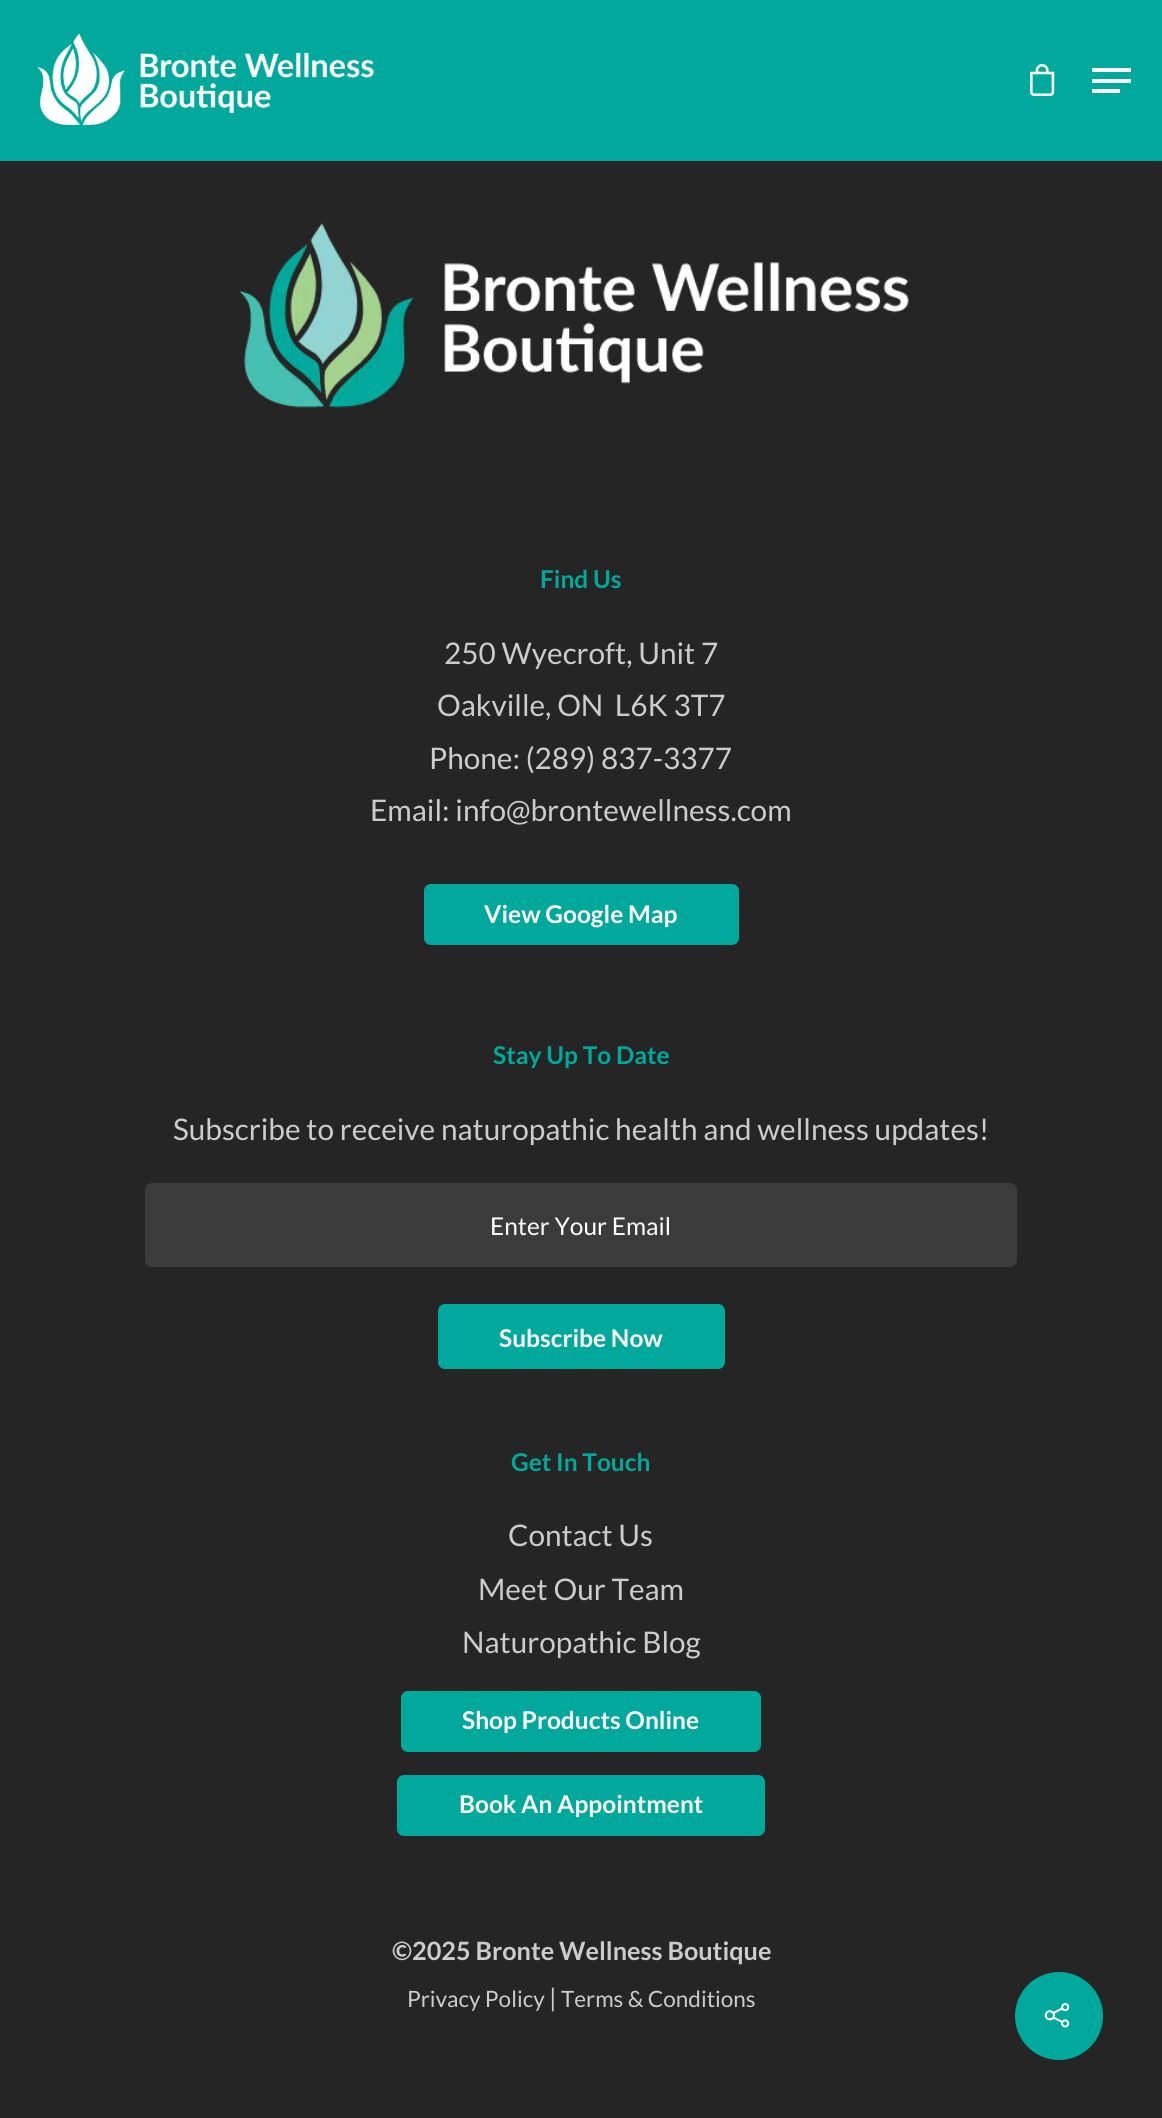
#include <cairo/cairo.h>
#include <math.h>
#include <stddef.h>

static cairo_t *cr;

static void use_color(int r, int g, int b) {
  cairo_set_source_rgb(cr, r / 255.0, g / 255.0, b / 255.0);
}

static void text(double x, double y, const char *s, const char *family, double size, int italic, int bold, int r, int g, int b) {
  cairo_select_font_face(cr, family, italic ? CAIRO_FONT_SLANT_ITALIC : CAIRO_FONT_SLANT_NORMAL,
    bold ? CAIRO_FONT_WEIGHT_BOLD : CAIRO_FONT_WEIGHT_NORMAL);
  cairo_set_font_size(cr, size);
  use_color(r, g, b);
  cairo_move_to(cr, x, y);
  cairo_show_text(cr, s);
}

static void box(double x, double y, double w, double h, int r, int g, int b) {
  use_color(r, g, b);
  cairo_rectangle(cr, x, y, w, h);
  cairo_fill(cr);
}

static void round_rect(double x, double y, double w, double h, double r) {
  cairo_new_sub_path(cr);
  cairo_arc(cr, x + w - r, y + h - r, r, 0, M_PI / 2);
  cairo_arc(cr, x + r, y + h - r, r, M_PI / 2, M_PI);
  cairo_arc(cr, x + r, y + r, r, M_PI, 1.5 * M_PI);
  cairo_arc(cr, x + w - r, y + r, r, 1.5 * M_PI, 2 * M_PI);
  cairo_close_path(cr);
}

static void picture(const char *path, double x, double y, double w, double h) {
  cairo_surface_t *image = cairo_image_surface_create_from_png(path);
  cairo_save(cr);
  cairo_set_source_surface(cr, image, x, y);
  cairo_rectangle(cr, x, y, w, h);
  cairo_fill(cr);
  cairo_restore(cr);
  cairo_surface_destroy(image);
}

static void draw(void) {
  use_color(37, 37, 37);
  cairo_paint(cr);
  box(0, 0, 1162, 161, 0, 169, 155);
  picture("img_01.png", 37, 33, 337, 92);
  picture("img_02.png", 1030, 63, 25, 33);
  box(1092, 68, 39, 4, 255, 255, 255);
  box(1092, 89, 28, 4, 255, 255, 255);
  box(1092, 79, 39, 4, 255, 255, 255);
  picture("img_03.png", 239, 223, 670, 185);
  use_color(0, 169, 155);
  round_rect(424, 884, 315, 61, 7);
  cairo_fill(cr);
  use_color(59, 59, 59);
  round_rect(145, 1183, 872, 84, 7);
  cairo_fill(cr);
  use_color(0, 169, 155);
  round_rect(438, 1304, 287, 65, 7);
  cairo_fill(cr);
  round_rect(401, 1691, 360, 61, 7);
  cairo_fill(cr);
  round_rect(397, 1775, 368, 61, 7);
  cairo_fill(cr);
  cairo_arc(cr, 1059, 2016, 44, 0, 2 * M_PI);
  cairo_fill(cr);
  picture("img_04.png", 1044, 2003, 26, 25);
  text(540, 588, "Find Us", "Lato", 24.5, 0, 1, 0, 169, 155);
  text(444, 664, "250 Wyecroft, Unit 7", "Lato", 29.75, 0, 0, 204, 204, 204);
  text(437, 716, "Oakville, ON  L6K 3T7", "Lato", 29.75, 0, 0, 204, 204, 204);
  text(429, 769, "Phone: (289) 837-3377", "Lato", 29.75, 0, 0, 204, 204, 204);
  text(370, 821, "Email: info@brontewellness.com", "Lato", 29.75, 0, 0, 204, 204, 204);
  text(484, 923, "View Google Map", "Lato", 24.5, 0, 1, 255, 255, 255);
  text(493, 1064, "Stay Up To Date", "Lato", 24.5, 0, 1, 0, 169, 155);
  text(173, 1140, "Subscribe to receive naturopathic health and wellness updates!", "Lato", 29.75, 0, 0, 204, 204, 204);
  text(490, 1235, "Enter Your Email", "Lato", 24.5, 0, 0, 255, 255, 255);
  text(499, 1347, "Subscribe Now", "Lato", 24.5, 0, 1, 255, 255, 255);
  text(511, 1471, "Get In Touch", "Lato", 24.5, 0, 1, 0, 169, 155);
  text(508, 1546, "Contact Us", "Lato", 29.75, 0, 0, 204, 204, 204);
  text(478, 1600, "Meet Our Team", "Lato", 29.75, 0, 0, 204, 204, 204);
  text(462, 1653, "Naturopathic Blog", "Lato", 29.75, 0, 0, 204, 204, 204);
  text(462, 1729, "Shop Products Online", "Lato", 24.5, 0, 1, 255, 255, 255);
  text(459, 1813, "Book An Appointment", "Lato", 24.5, 0, 1, 255, 255, 255);
  text(392, 1960, "©2025 Bronte Wellness Boutique", "Lato", 25.25, 0, 1, 204, 204, 204);
  text(407, 2007, "Privacy Policy", "Lato", 22.5, 0, 0, 204, 204, 204);
  text(549, 2007, "|", "Lato", 25.25, 0, 0, 204, 204, 204);
  text(561, 2007, "Terms & Conditions", "Lato", 22.5, 0, 0, 204, 204, 204);
}

int main(void) {
  cairo_surface_t *surface = cairo_image_surface_create(CAIRO_FORMAT_RGB24, 1162, 2118);
  cr = cairo_create(surface);
  cairo_font_options_t *options = cairo_font_options_create();
  cairo_font_options_set_hint_metrics(options, CAIRO_HINT_METRICS_OFF);
  cairo_font_options_set_hint_style(options, CAIRO_HINT_STYLE_NONE);
  cairo_set_font_options(cr, options);
  cairo_set_miter_limit(cr, 4);
  draw();
  cairo_surface_write_to_png(surface, "out.png");
  cairo_font_options_destroy(options);
  cairo_destroy(cr);
  cairo_surface_destroy(surface);
  return 0;
}
